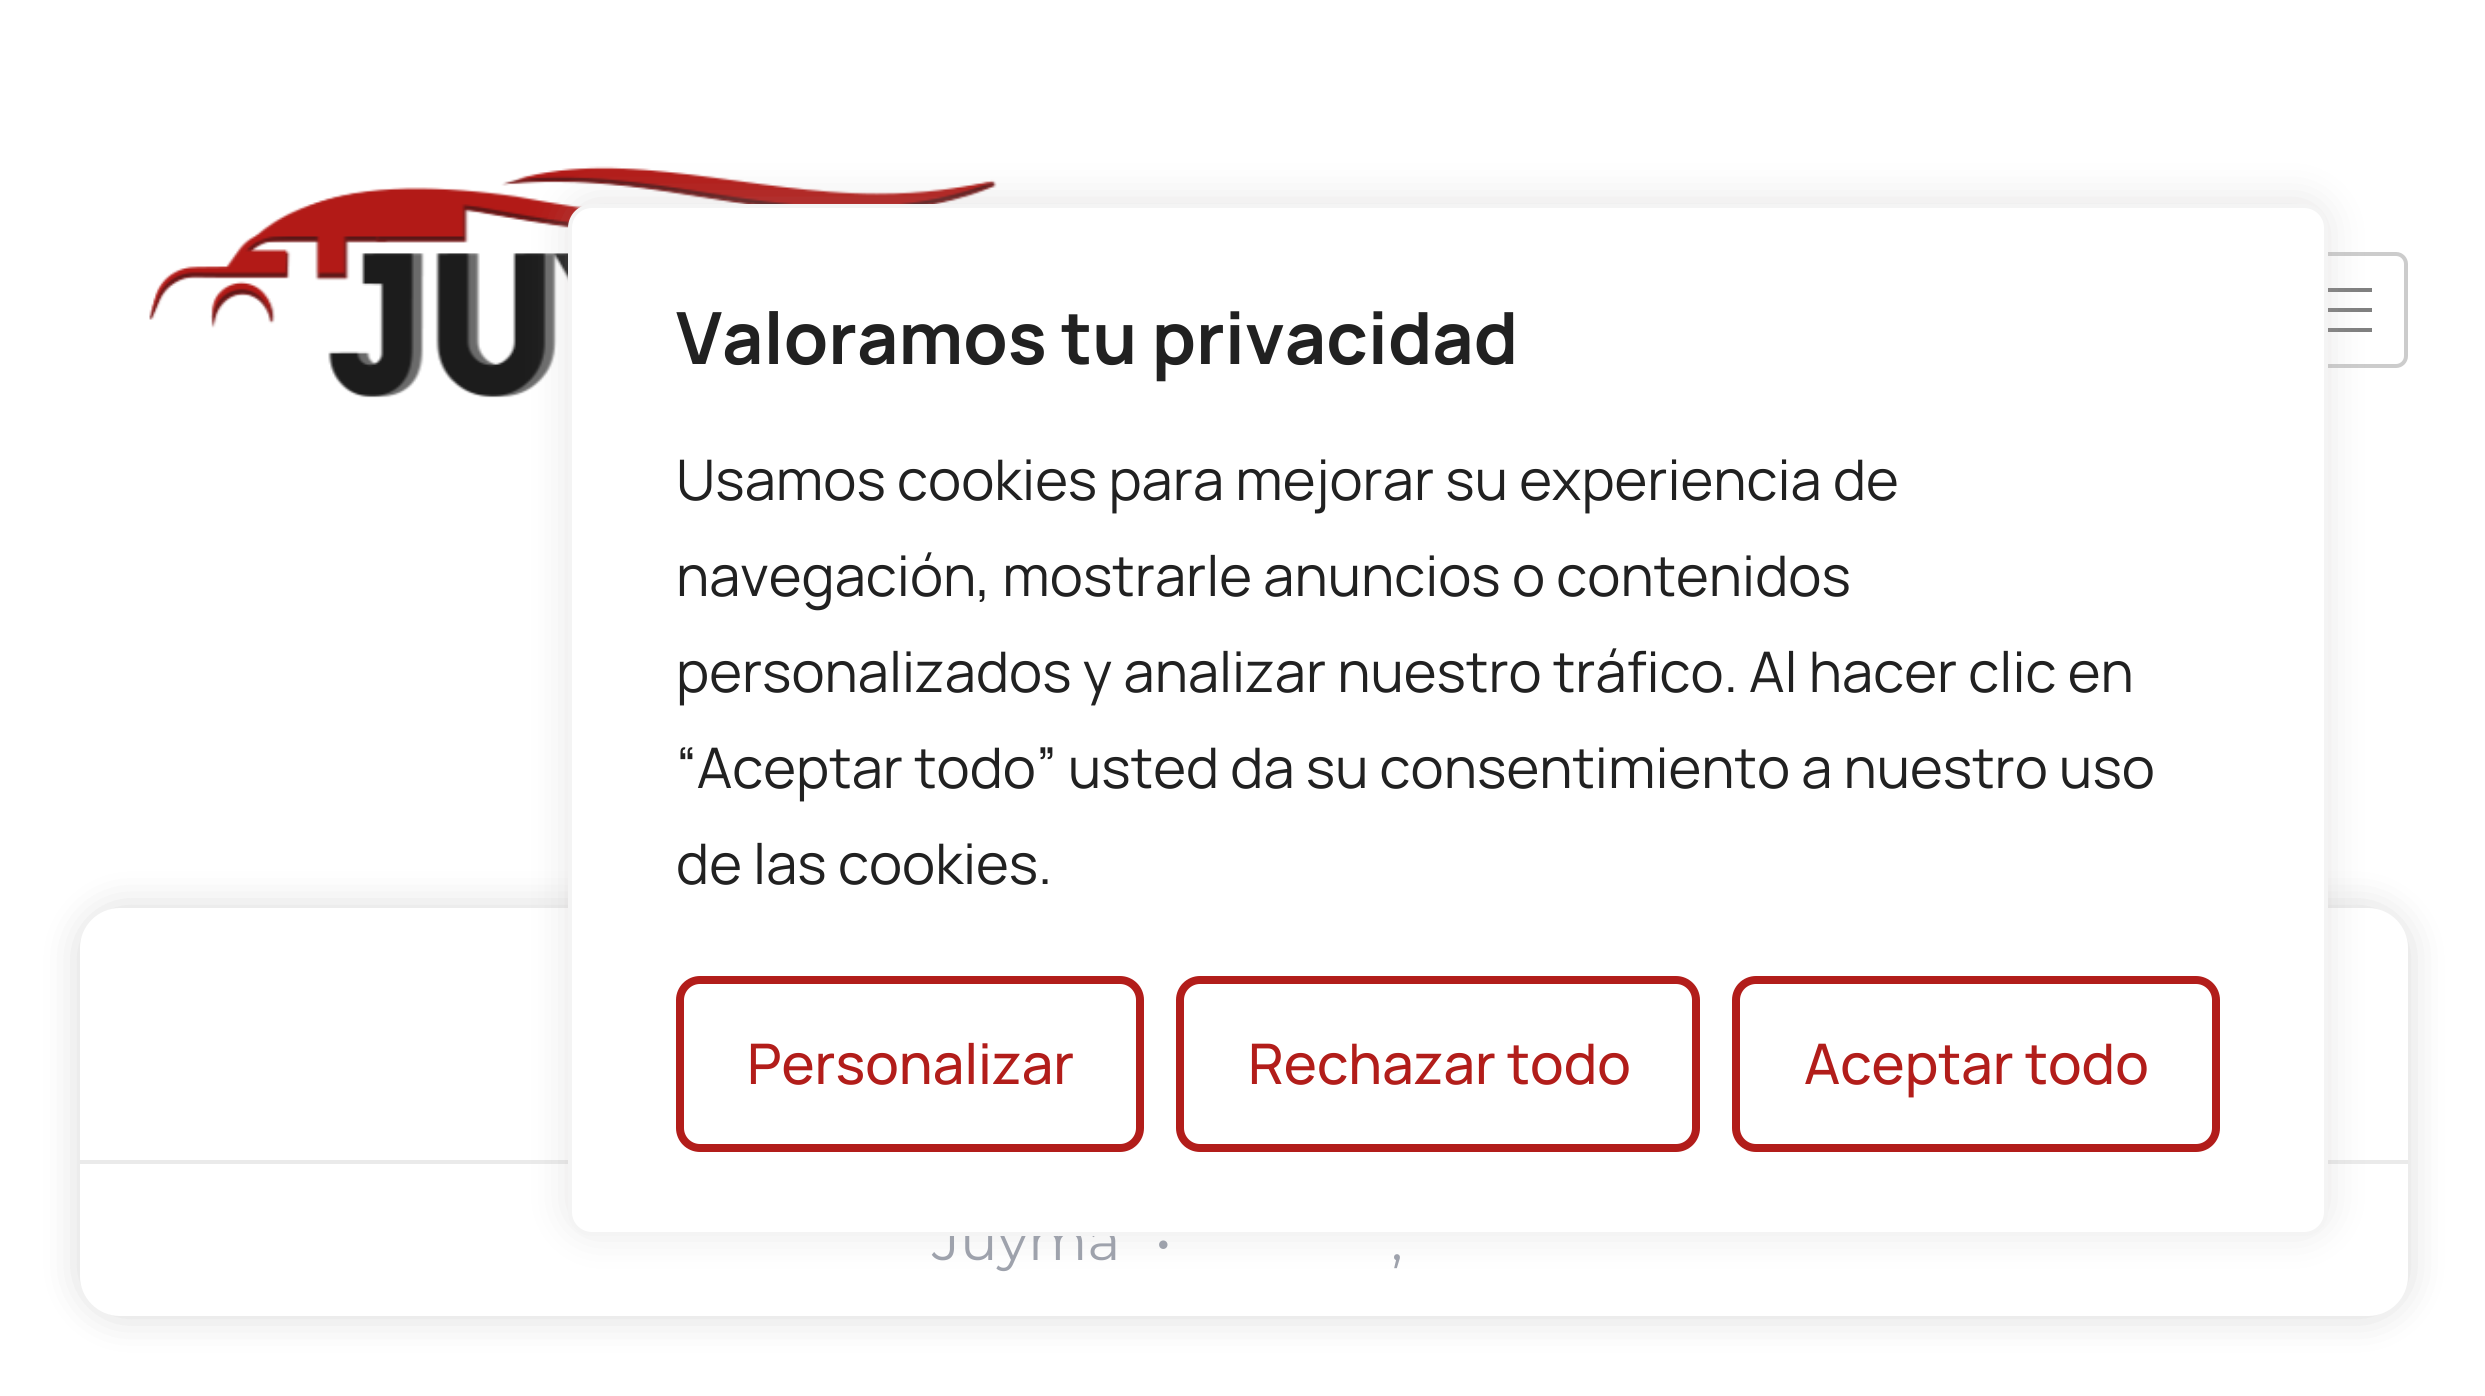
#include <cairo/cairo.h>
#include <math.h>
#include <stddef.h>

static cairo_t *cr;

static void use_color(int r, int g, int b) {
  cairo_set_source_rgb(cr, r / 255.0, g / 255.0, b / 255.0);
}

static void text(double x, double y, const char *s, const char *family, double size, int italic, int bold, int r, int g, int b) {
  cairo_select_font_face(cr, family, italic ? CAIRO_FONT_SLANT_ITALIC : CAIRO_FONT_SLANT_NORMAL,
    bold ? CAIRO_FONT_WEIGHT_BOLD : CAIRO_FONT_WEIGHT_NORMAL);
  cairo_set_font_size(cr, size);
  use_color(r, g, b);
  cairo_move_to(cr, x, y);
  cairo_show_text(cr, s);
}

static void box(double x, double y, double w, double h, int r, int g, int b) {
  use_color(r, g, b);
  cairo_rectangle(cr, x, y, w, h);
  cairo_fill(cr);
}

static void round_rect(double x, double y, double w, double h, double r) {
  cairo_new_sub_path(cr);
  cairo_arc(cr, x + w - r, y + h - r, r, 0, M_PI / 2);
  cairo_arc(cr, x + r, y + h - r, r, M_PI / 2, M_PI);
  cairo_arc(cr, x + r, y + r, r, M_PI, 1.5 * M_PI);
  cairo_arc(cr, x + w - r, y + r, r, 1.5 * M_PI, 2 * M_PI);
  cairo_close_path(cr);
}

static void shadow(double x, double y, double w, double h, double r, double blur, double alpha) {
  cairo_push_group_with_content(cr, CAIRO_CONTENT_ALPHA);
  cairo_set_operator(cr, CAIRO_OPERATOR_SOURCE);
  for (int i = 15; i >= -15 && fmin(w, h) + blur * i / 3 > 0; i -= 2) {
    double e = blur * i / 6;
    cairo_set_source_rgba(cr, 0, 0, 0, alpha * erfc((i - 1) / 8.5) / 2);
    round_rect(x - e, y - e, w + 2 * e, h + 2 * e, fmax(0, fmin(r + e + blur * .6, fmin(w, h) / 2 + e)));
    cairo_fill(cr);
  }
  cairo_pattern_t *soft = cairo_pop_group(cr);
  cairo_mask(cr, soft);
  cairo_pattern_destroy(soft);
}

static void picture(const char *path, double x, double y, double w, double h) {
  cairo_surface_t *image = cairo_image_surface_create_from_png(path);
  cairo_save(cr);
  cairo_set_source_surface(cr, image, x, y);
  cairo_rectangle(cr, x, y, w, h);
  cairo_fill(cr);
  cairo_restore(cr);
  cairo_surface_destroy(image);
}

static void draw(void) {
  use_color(255, 255, 255);
  cairo_paint(cr);
  picture("img_01.png", 149, 166, 848, 232);
  round_rect(2230, 254, 176, 112, 10);
  use_color(204, 204, 204);
  cairo_set_line_width(cr, 4);
  cairo_stroke(cr);
  box(2328, 288, 44, 4, 128, 128, 128);
  box(2328, 308, 44, 4, 128, 128, 128);
  box(2328, 328, 44, 4, 128, 128, 128);
  use_color(0, 0, 0);
  shadow(80, 908, 2328, 408, 40, 20, 0.15);
  use_color(255, 255, 255);
  round_rect(80, 908, 2328, 408, 40);
  cairo_fill(cr);
  box(80, 1160, 2328, 4, 234, 234, 234);
  use_color(172, 171, 171);
  shadow(568, 200, 1760, 1032, 24, 20, 0.3);
  text(932, 1260, "Juyma", "Montserrat", 56, 0, 0, 158, 162, 172);
  use_color(255, 255, 255);
  round_rect(570, 206, 1756, 1028, 22);
  cairo_fill_preserve(cr);
  use_color(244, 244, 244);
  cairo_stroke(cr);
  round_rect(1736, 980, 480, 168, 20);
  use_color(178, 29, 26);
  cairo_set_line_width(cr, 8);
  cairo_stroke(cr);
  text(1804, 1084, "Aceptar todo", "Manrope Medium", 56, 0, 0, 178, 29, 26);
  round_rect(1180, 980, 516, 168, 20);
  cairo_stroke(cr);
  text(1248, 1084, "Rechazar todo", "Manrope Medium", 56, 0, 0, 178, 29, 26);
  round_rect(680, 980, 460, 168, 20);
  cairo_stroke(cr);
  text(747, 1084, "Personalizar", "Manrope Medium", 56, 0, 0, 178, 29, 26);
  text(676, 884, "de las cookies.", "Manrope", 56, 0, 0, 33, 33, 33);
  text(676, 788, "“Aceptar todo” usted da su consentimiento a nuestro uso", "Manrope", 56, 0, 0, 33, 33, 33);
  text(676, 692, "personalizados y analizar nuestro tráfico. Al hacer clic en", "Manrope", 56, 0, 0, 33, 33, 33);
  text(676, 596, "navegación, mostrarle anuncios o contenidos", "Manrope", 56, 0, 0, 33, 33, 33);
  text(676, 500, "Usamos cookies para mejorar su experiencia de", "Manrope", 56, 0, 0, 33, 33, 33);
  text(676, 364, "Valoramos tu privacidad", "Manrope", 72, 0, 1, 33, 33, 33);
  text(1155, 1260, "•", "Montserrat", 56, 0, 0, 158, 162, 172);
  text(1391, 1260, ",", "Montserrat", 56, 0, 0, 158, 162, 172);
}

int main(void) {
  cairo_surface_t *surface = cairo_image_surface_create(CAIRO_FORMAT_RGB24, 2485, 1396);
  cr = cairo_create(surface);
  cairo_font_options_t *options = cairo_font_options_create();
  cairo_font_options_set_hint_metrics(options, CAIRO_HINT_METRICS_OFF);
  cairo_font_options_set_hint_style(options, CAIRO_HINT_STYLE_NONE);
  cairo_set_font_options(cr, options);
  cairo_set_miter_limit(cr, 4);
  draw();
  cairo_surface_write_to_png(surface, "out.png");
  cairo_font_options_destroy(options);
  cairo_destroy(cr);
  cairo_surface_destroy(surface);
  return 0;
}
